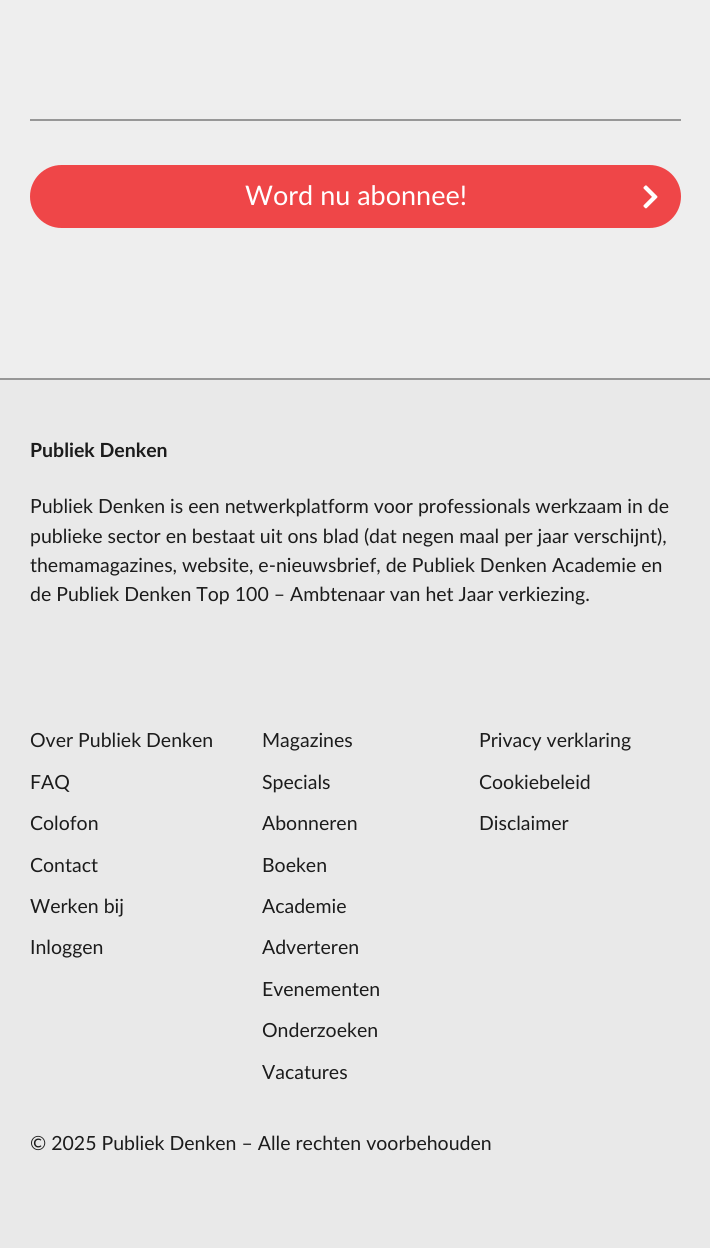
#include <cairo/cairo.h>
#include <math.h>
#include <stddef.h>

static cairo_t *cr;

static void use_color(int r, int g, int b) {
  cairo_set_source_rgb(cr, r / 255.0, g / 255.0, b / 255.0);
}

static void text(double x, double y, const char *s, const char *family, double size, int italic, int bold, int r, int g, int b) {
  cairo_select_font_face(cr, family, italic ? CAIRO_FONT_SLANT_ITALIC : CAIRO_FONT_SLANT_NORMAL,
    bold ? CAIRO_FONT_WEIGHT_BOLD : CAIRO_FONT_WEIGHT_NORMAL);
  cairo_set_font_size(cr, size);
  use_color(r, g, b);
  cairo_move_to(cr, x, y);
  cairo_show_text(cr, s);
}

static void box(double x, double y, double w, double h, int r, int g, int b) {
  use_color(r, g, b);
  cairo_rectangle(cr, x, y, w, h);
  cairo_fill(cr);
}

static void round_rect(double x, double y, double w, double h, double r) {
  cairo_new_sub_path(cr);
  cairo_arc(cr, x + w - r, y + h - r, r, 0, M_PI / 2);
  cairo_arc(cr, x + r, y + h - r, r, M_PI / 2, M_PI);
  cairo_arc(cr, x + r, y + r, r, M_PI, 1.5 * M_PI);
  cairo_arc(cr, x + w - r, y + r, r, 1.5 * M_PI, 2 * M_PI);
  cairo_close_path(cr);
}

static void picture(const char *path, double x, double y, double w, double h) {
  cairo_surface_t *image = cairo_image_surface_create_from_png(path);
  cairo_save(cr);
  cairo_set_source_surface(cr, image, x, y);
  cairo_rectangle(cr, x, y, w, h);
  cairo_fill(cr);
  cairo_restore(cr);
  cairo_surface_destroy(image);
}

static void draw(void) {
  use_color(238, 238, 238);
  cairo_paint(cr);
  box(30, 119, 651, 2, 151, 151, 151);
  use_color(239, 70, 72);
  round_rect(30, 165, 651, 63, 31.5);
  cairo_fill(cr);
  picture("img_01.png", 643, 185, 15, 24);
  box(0, 380, 710, 868, 233, 233, 233);
  box(0, 378, 710, 2, 151, 151, 151);
  text(245, 205, "Word nu abonnee!", "Lato", 27, 0, 0, 255, 255, 255);
  text(30, 457, "Publiek Denken", "Lato", 19.5, 0, 1, 28, 28, 28);
  text(30, 513, "Publiek Denken is een netwerkplatform voor professionals werkzaam in de", "Lato", 19.5, 0, 0, 28, 28, 28);
  text(30, 543, "publieke sector en bestaat uit ons blad (dat negen maal per jaar verschijnt),", "Lato", 19.5, 0, 0, 28, 28, 28);
  text(30, 572, "themamagazines, website, e-nieuwsbrief, de Publiek Denken Academie en", "Lato", 19.5, 0, 0, 28, 28, 28);
  text(30, 601, "de Publiek Denken Top 100 – Ambtenaar van het Jaar verkiezing.", "Lato", 19.5, 0, 0, 28, 28, 28);
  text(30, 747, "Over Publiek Denken", "Lato", 19.5, 0, 0, 28, 28, 28);
  text(30, 789, "FAQ", "Lato", 19.5, 0, 0, 28, 28, 28);
  text(30, 830, "Colofon", "Lato", 19.5, 0, 0, 28, 28, 28);
  text(30, 872, "Contact", "Lato", 19.5, 0, 0, 28, 28, 28);
  text(30, 913, "Werken bij", "Lato", 19.5, 0, 0, 28, 28, 28);
  text(30, 954, "Inloggen", "Lato", 19.5, 0, 0, 28, 28, 28);
  text(262, 747, "Magazines", "Lato", 19.5, 0, 0, 28, 28, 28);
  text(262, 789, "Specials", "Lato", 19.5, 0, 0, 28, 28, 28);
  text(262, 830, "Abonneren", "Lato", 19.5, 0, 0, 28, 28, 28);
  text(262, 872, "Boeken", "Lato", 19.5, 0, 0, 28, 28, 28);
  text(262, 913, "Academie", "Lato", 19.5, 0, 0, 28, 28, 28);
  text(262, 954, "Adverteren", "Lato", 19.5, 0, 0, 28, 28, 28);
  text(262, 996, "Evenementen", "Lato", 19.5, 0, 0, 28, 28, 28);
  text(262, 1037, "Onderzoeken", "Lato", 19.5, 0, 0, 28, 28, 28);
  text(262, 1079, "Vacatures", "Lato", 19.5, 0, 0, 28, 28, 28);
  text(479, 747, "Privacy verklaring", "Lato", 19.5, 0, 0, 28, 28, 28);
  text(479, 789, "Cookiebeleid", "Lato", 19.5, 0, 0, 28, 28, 28);
  text(479, 830, "Disclaimer", "Lato", 19.5, 0, 0, 28, 28, 28);
  text(30, 1150, "© 2025 Publiek Denken – Alle rechten voorbehouden", "Lato", 19.5, 0, 0, 28, 28, 28);
}

int main(void) {
  cairo_surface_t *surface = cairo_image_surface_create(CAIRO_FORMAT_RGB24, 710, 1248);
  cr = cairo_create(surface);
  cairo_font_options_t *options = cairo_font_options_create();
  cairo_font_options_set_hint_metrics(options, CAIRO_HINT_METRICS_OFF);
  cairo_font_options_set_hint_style(options, CAIRO_HINT_STYLE_NONE);
  cairo_set_font_options(cr, options);
  cairo_set_miter_limit(cr, 4);
  draw();
  cairo_surface_write_to_png(surface, "out.png");
  cairo_font_options_destroy(options);
  cairo_destroy(cr);
  cairo_surface_destroy(surface);
  return 0;
}
